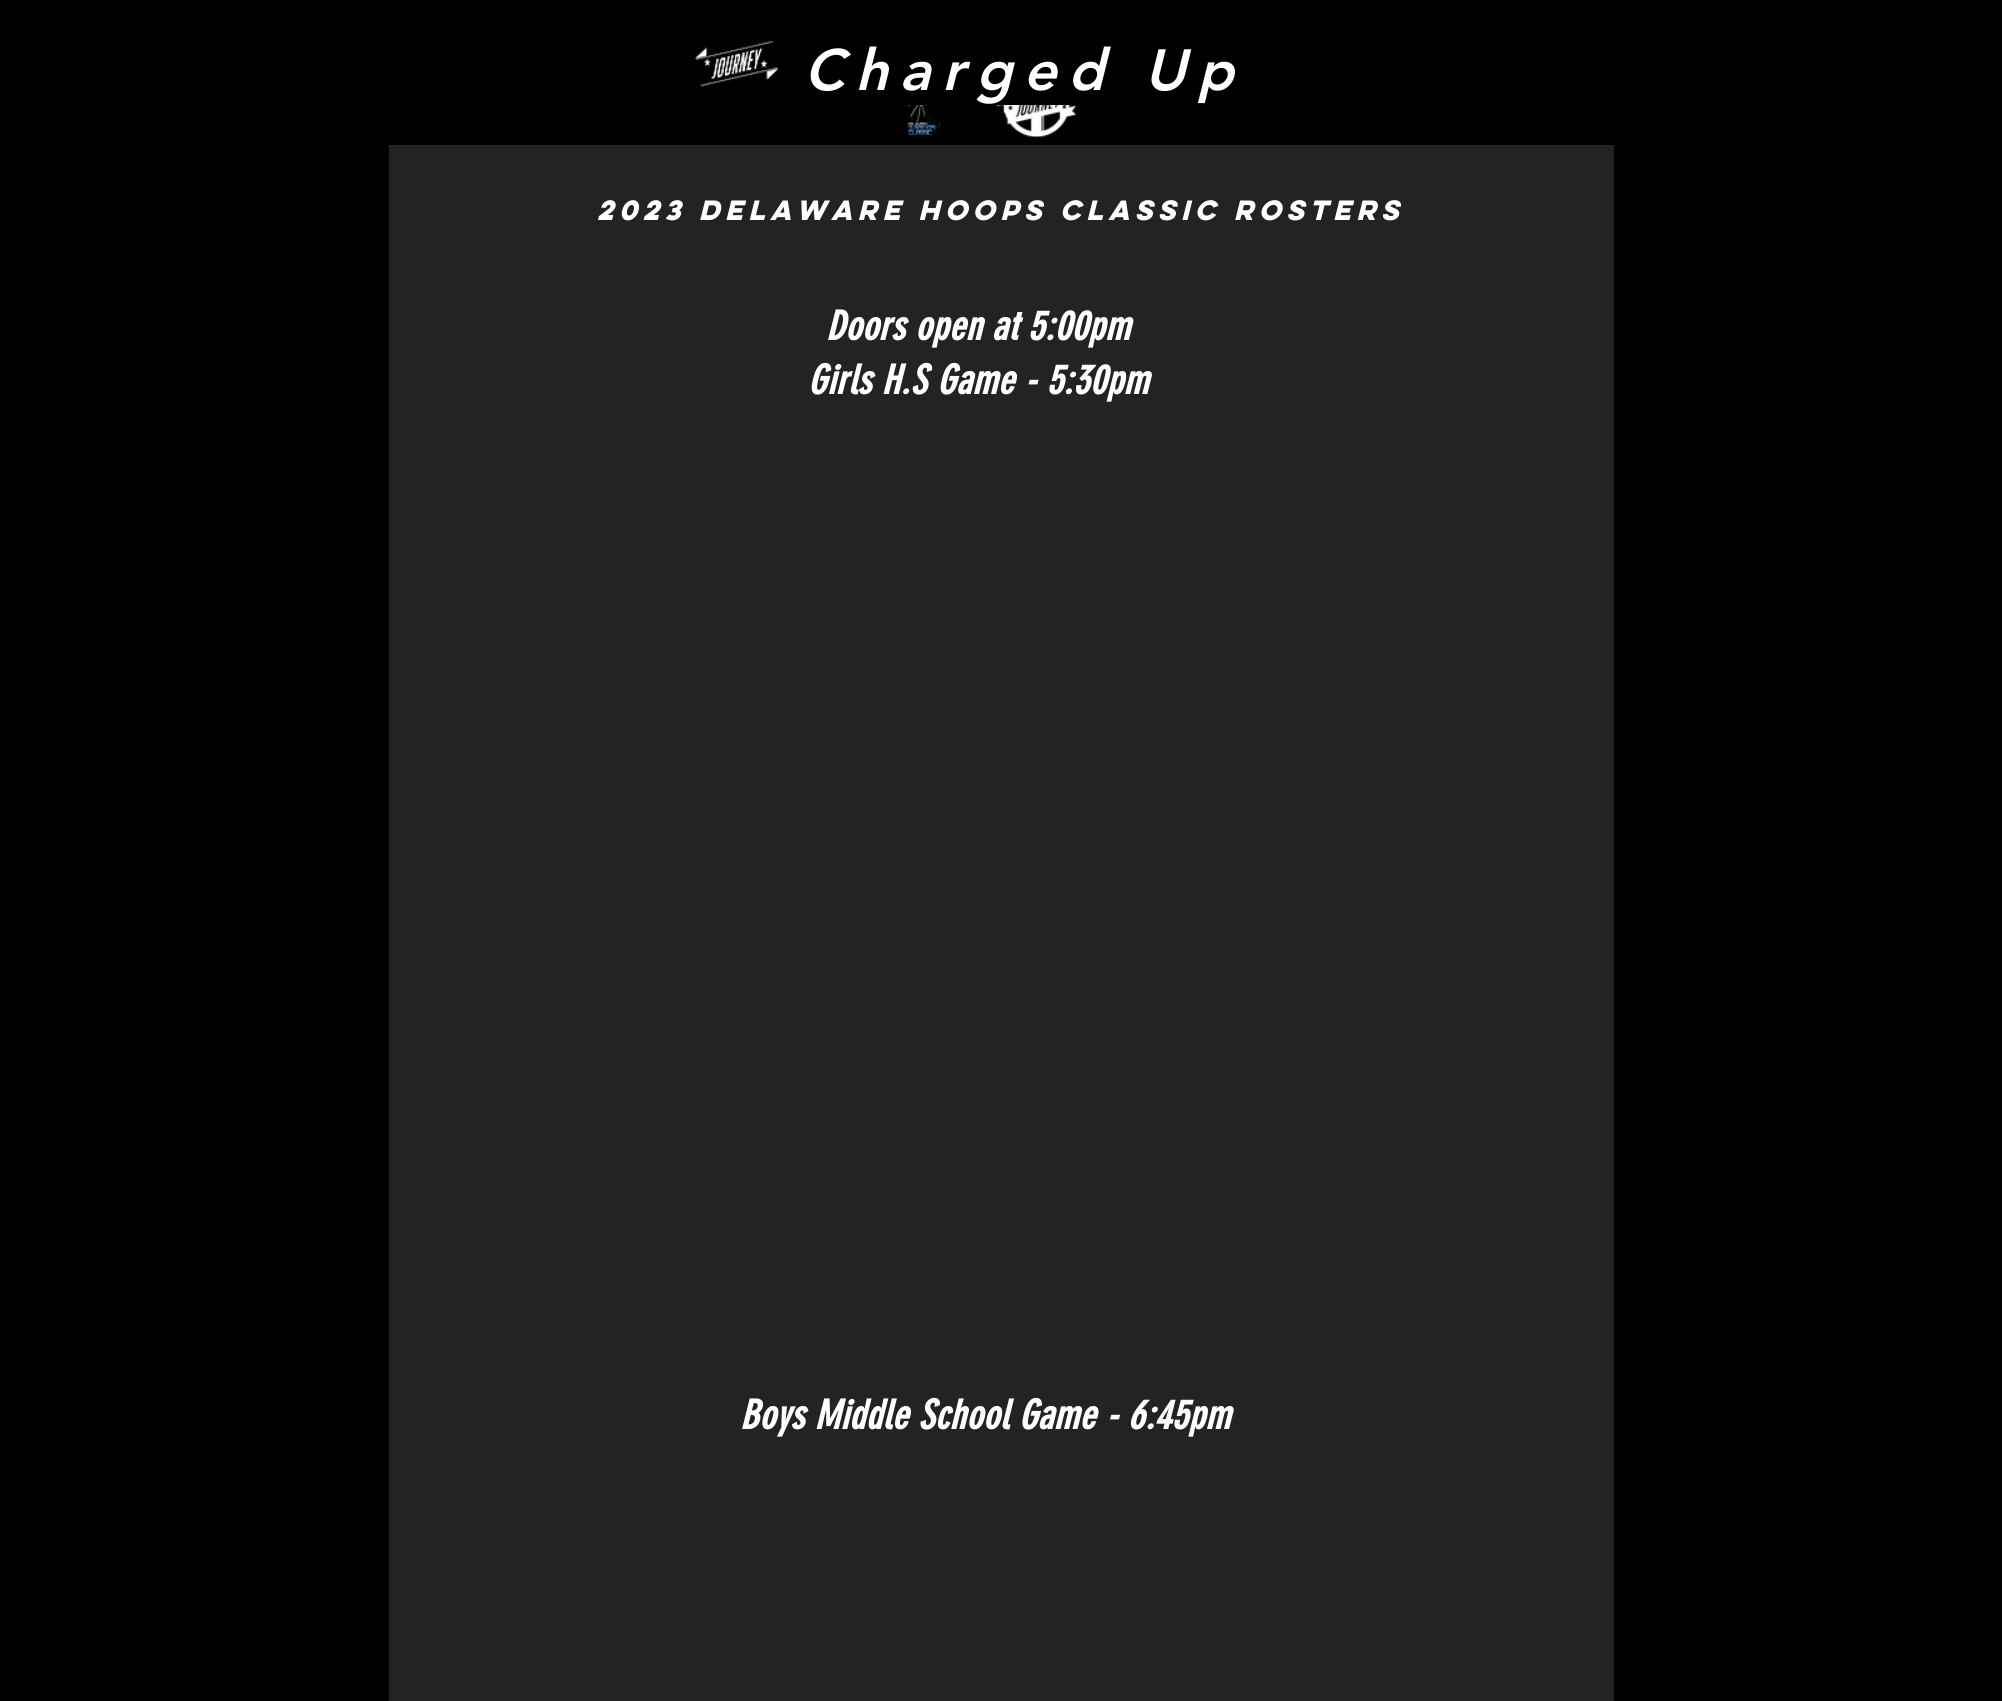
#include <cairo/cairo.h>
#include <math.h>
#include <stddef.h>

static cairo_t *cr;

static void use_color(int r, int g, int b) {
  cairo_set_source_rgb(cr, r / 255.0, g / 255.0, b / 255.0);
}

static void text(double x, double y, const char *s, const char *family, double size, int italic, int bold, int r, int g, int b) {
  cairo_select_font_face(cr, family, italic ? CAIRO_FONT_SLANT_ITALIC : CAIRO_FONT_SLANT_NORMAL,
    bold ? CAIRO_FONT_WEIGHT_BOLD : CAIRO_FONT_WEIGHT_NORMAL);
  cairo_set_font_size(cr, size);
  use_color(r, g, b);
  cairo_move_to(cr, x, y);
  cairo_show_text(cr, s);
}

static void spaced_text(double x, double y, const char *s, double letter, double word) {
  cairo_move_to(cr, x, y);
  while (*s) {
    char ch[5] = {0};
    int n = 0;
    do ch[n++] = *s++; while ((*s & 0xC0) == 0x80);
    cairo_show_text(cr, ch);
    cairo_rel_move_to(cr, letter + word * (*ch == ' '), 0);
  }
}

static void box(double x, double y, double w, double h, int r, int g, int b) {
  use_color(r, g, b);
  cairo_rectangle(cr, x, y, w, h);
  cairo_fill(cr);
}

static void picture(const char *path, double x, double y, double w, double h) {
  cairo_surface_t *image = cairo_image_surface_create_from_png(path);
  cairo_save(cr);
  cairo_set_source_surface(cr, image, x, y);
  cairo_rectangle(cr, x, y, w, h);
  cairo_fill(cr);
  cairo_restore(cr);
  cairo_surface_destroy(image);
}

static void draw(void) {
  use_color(0, 0, 0);
  cairo_paint(cr);
  picture("img_01.png", 695, 41, 84, 46);
  box(389, 145, 1225, 1556, 35, 35, 35);
  picture("img_02.png", 907, 105, 34, 31);
  picture("img_03.png", 996, 105, 81, 33);
  cairo_select_font_face(cr, "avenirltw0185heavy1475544 Black", CAIRO_FONT_SLANT_ITALIC, CAIRO_FONT_WEIGHT_NORMAL);
  cairo_set_font_size(cr, 57.5);
  use_color(255, 255, 255);
  spaced_text(804, 90, "Charged Up", 11.5, 0);
  text(597, 220, "2023 Delaware Hoops Classic rosters", "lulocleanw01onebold", 25, 1, 1, 255, 255, 255);
  cairo_select_font_face(cr, "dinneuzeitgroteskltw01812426", CAIRO_FONT_SLANT_ITALIC, CAIRO_FONT_WEIGHT_BOLD);
  cairo_set_font_size(cr, 40);
  spaced_text(826, 340, "Doors open at 5:00pm", 0.4, 0);
  spaced_text(808, 394, "Girls H.S Game - 5:30pm", 0.4, 0);
  spaced_text(740, 1429, "Boys Middle School Game - 6:45pm", 0.4, 0);
}

int main(void) {
  cairo_surface_t *surface = cairo_image_surface_create(CAIRO_FORMAT_RGB24, 2002, 1701);
  cr = cairo_create(surface);
  cairo_font_options_t *options = cairo_font_options_create();
  cairo_font_options_set_hint_metrics(options, CAIRO_HINT_METRICS_OFF);
  cairo_font_options_set_hint_style(options, CAIRO_HINT_STYLE_NONE);
  cairo_set_font_options(cr, options);
  cairo_set_miter_limit(cr, 4);
  draw();
  cairo_surface_write_to_png(surface, "out.png");
  cairo_font_options_destroy(options);
  cairo_destroy(cr);
  cairo_surface_destroy(surface);
  return 0;
}
